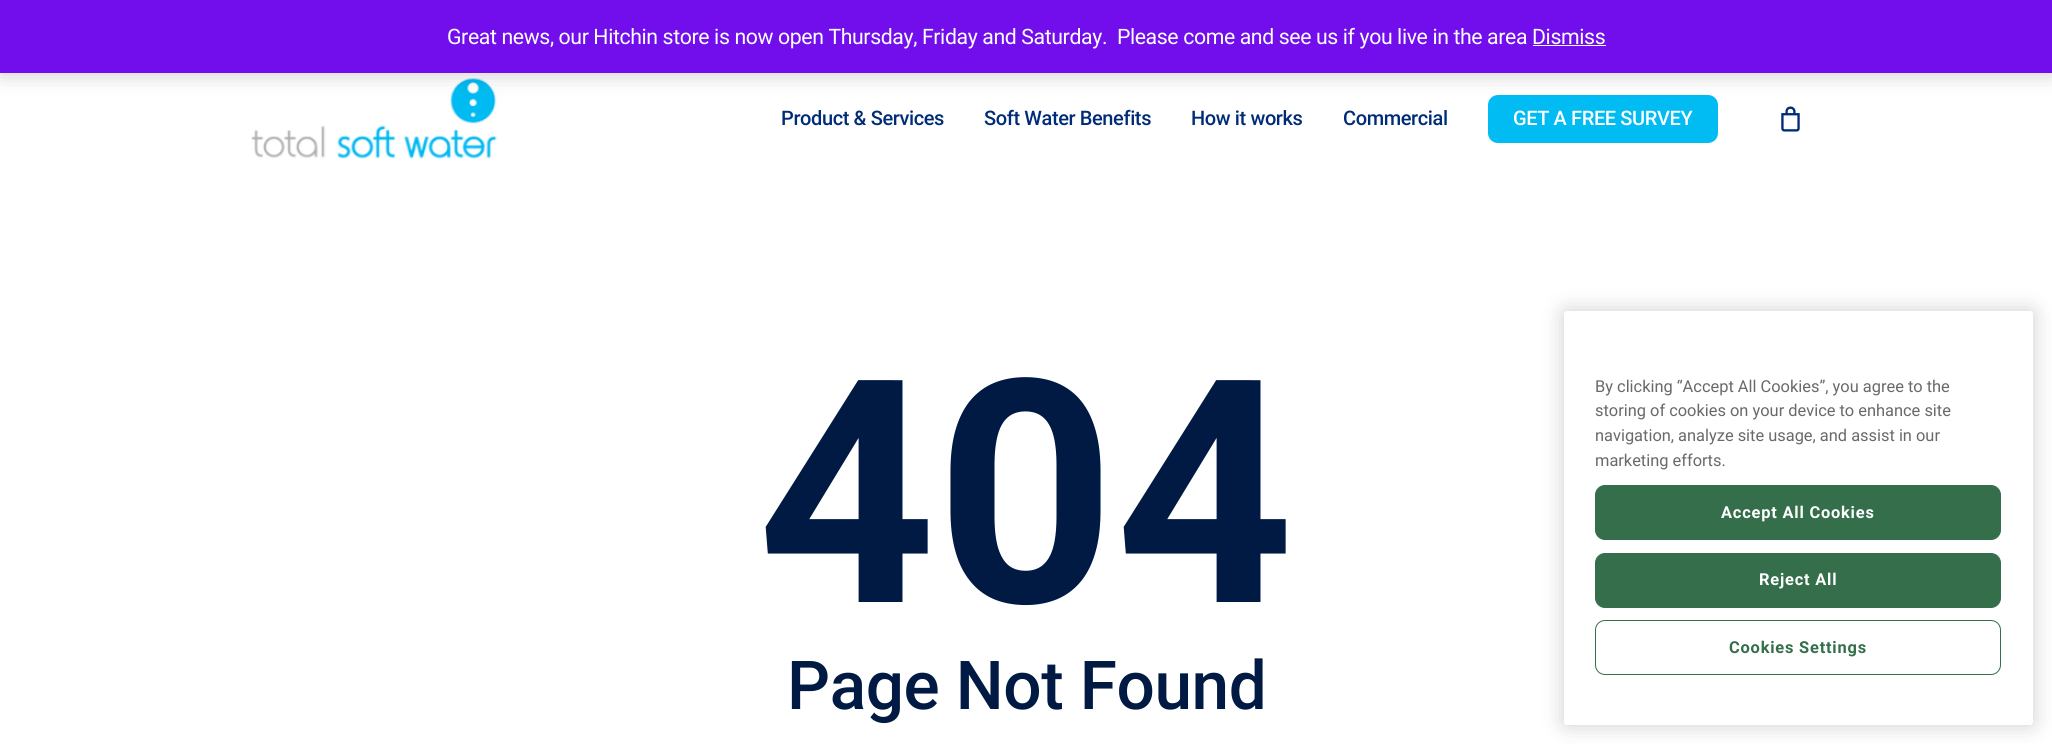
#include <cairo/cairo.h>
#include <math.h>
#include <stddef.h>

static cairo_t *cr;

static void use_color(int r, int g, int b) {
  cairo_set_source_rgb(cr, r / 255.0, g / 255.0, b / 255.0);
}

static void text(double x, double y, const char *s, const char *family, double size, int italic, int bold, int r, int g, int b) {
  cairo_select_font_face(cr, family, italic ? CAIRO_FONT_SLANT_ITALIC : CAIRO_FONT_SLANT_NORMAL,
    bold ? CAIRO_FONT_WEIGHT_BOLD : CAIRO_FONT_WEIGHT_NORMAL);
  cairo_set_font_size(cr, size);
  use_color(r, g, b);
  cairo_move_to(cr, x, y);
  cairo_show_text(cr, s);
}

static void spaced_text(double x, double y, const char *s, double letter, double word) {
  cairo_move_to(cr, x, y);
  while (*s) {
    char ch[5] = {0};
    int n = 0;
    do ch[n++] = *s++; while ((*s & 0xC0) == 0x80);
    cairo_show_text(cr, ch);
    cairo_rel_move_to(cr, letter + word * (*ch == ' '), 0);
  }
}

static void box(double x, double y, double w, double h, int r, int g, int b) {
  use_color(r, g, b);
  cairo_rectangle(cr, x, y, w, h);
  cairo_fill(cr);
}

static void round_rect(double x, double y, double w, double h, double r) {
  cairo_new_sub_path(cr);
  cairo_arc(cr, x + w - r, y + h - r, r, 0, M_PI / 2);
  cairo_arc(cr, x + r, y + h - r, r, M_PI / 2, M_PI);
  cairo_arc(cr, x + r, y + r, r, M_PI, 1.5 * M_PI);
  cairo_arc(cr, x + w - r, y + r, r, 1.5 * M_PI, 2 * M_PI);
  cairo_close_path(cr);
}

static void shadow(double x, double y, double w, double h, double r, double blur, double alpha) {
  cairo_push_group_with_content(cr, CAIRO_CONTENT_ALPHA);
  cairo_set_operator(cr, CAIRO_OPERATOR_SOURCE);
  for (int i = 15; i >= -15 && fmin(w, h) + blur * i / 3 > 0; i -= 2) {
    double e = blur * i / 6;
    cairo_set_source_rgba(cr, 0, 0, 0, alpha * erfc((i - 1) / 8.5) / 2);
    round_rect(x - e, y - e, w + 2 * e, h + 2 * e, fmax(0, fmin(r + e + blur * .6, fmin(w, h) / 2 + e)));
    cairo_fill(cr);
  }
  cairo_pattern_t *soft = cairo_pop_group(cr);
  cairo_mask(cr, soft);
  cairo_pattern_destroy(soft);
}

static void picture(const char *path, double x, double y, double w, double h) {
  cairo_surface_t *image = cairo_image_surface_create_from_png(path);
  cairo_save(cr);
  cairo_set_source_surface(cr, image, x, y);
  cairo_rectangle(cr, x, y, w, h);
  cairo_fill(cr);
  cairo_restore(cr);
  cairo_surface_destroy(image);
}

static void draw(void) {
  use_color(255, 255, 255);
  cairo_paint(cr);
  picture("img_01.png", 251, 77, 247, 82);
  use_color(0, 188, 243);
  round_rect(1488, 95, 230, 48, 10);
  cairo_fill(cr);
  picture("img_02.png", 1781, 106, 19, 26);
  use_color(0, 0, 0);
  shadow(0, 1, 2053, 73, 0, 10.5, 0.2);
  box(0, 0, 2052, 73, 114, 14, 236);
  use_color(0, 0, 0);
  shadow(1564, 311, 469, 414, 3, 11, 0.2);
  use_color(255, 255, 255);
  round_rect(1564, 311, 469, 414, 3);
  cairo_fill(cr);
  use_color(52, 110, 74);
  round_rect(1595.5, 485.5, 405, 54, 9.5);
  cairo_fill_preserve(cr);
  cairo_set_line_width(cr, 1);
  cairo_stroke(cr);
  round_rect(1595.5, 553.5, 405, 54, 9.5);
  cairo_fill_preserve(cr);
  cairo_stroke(cr);
  round_rect(1595.5, 620.5, 405, 54, 9.5);
  cairo_stroke(cr);
  cairo_select_font_face(cr, "Roboto", CAIRO_FONT_SLANT_NORMAL, CAIRO_FONT_WEIGHT_NORMAL);
  cairo_set_font_size(cr, 21.25);
  use_color(255, 255, 255);
  spaced_text(447, 44, "Great news, our Hitchin store is now open Thursday, Friday and Saturday.  Please come and see us if you live in the area Dismiss", -0.38, 0);
  box(1533, 45, 73, 1, 252, 251, 254);
  cairo_select_font_face(cr, "Roboto Medium", CAIRO_FONT_SLANT_NORMAL, CAIRO_FONT_WEIGHT_NORMAL);
  cairo_set_font_size(cr, 20);
  use_color(0, 44, 119);
  spaced_text(781, 125, "Product & Services", -0.38, 0);
  spaced_text(984, 125, "Soft Water Benefits", -0.38, 0);
  spaced_text(1191, 125, "How it works", -0.38, 0);
  spaced_text(1343, 125, "Commercial", -0.38, 0);
  use_color(255, 255, 255);
  spaced_text(1513, 125, "GET A FREE SURVEY", -0.38, 0);
  text(757, 602, "404", "Roboto", 312, 0, 1, 0, 26, 67);
  cairo_select_font_face(cr, "Roboto Medium", CAIRO_FONT_SLANT_NORMAL, CAIRO_FONT_WEIGHT_NORMAL);
  cairo_set_font_size(cr, 67.5);
  spaced_text(787, 709, "Page Not Found", -0.38, 0);
  text(1595, 392, "By clicking “Accept All Cookies”, you agree to the", "Roboto", 16.4, 0, 0, 105, 105, 105);
  text(1595, 416, "storing of cookies on your device to enhance site", "Roboto", 16.4, 0, 0, 105, 105, 105);
  text(1595, 441, "navigation, analyze site usage, and assist in our", "Roboto", 16.4, 0, 0, 105, 105, 105);
  text(1595, 466, "marketing efforts.", "Roboto", 16.4, 0, 0, 105, 105, 105);
  cairo_select_font_face(cr, "Roboto", CAIRO_FONT_SLANT_NORMAL, CAIRO_FONT_WEIGHT_BOLD);
  use_color(255, 255, 255);
  spaced_text(1721, 518, "Accept All Cookies", 0.8, 0);
  spaced_text(1759, 585, "Reject All", 0.8, 0);
  use_color(52, 110, 74);
  spaced_text(1729, 653, "Cookies Settings", 0.8, 0);
}

int main(void) {
  cairo_surface_t *surface = cairo_image_surface_create(CAIRO_FORMAT_RGB24, 2052, 744);
  cr = cairo_create(surface);
  cairo_font_options_t *options = cairo_font_options_create();
  cairo_font_options_set_hint_metrics(options, CAIRO_HINT_METRICS_OFF);
  cairo_font_options_set_hint_style(options, CAIRO_HINT_STYLE_NONE);
  cairo_set_font_options(cr, options);
  cairo_set_miter_limit(cr, 4);
  draw();
  cairo_surface_write_to_png(surface, "out.png");
  cairo_font_options_destroy(options);
  cairo_destroy(cr);
  cairo_surface_destroy(surface);
  return 0;
}
